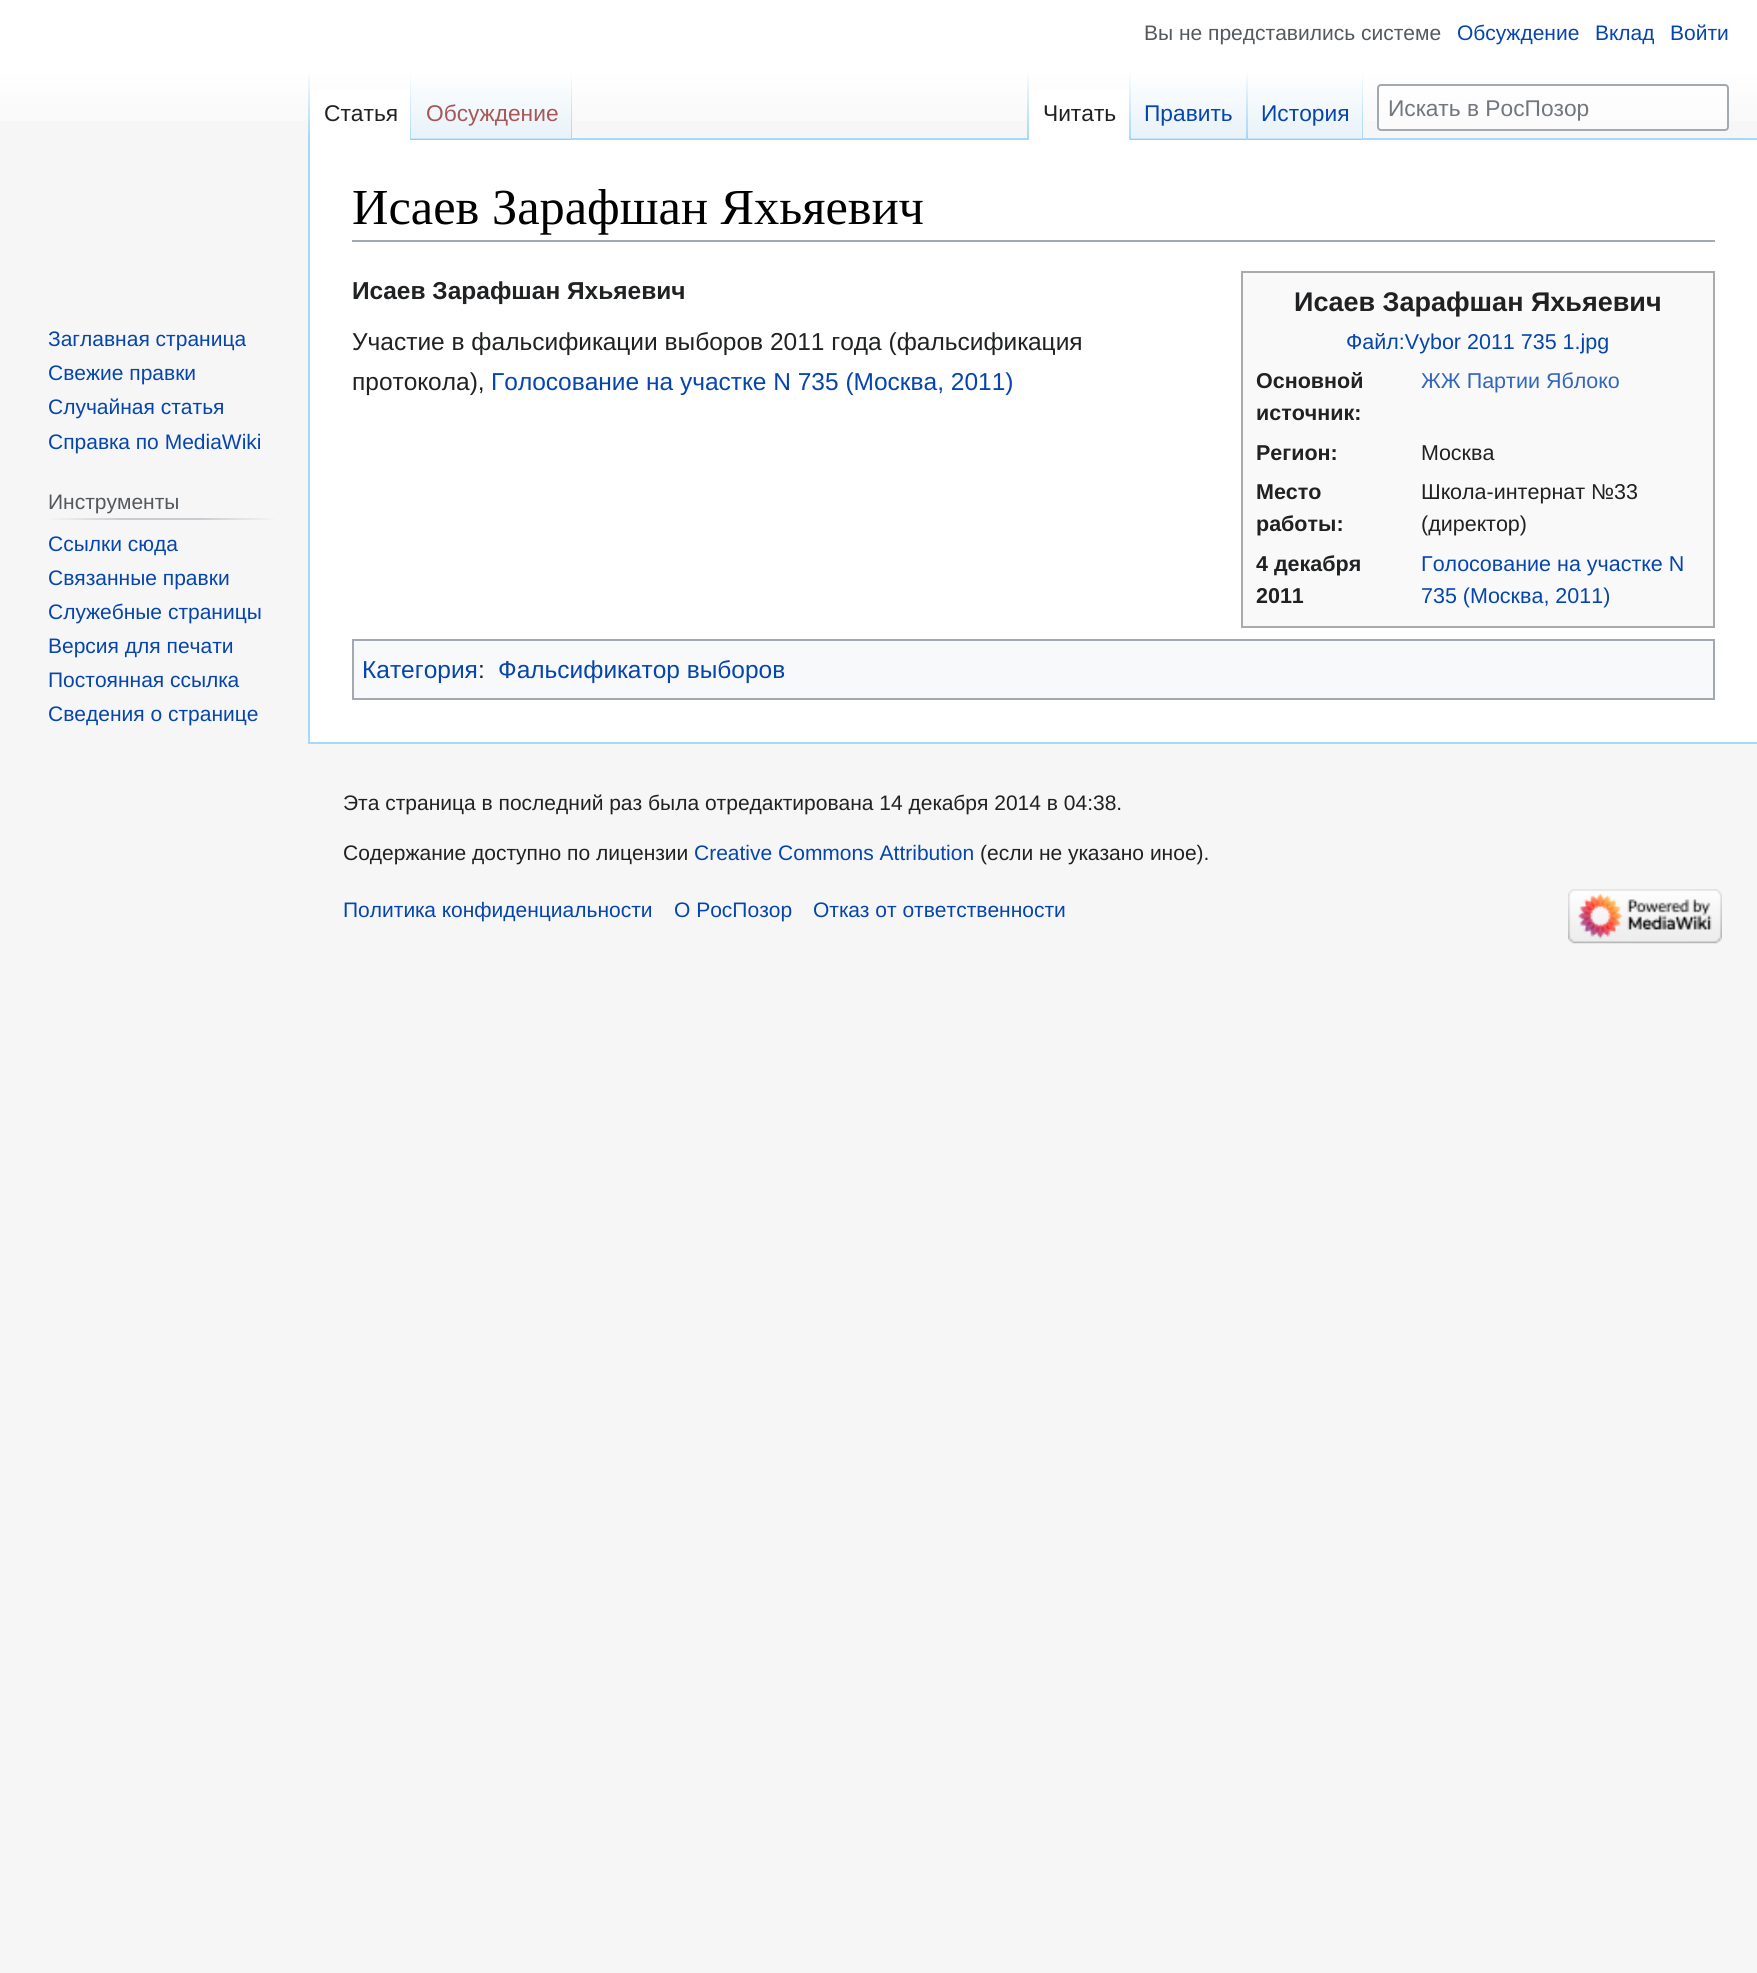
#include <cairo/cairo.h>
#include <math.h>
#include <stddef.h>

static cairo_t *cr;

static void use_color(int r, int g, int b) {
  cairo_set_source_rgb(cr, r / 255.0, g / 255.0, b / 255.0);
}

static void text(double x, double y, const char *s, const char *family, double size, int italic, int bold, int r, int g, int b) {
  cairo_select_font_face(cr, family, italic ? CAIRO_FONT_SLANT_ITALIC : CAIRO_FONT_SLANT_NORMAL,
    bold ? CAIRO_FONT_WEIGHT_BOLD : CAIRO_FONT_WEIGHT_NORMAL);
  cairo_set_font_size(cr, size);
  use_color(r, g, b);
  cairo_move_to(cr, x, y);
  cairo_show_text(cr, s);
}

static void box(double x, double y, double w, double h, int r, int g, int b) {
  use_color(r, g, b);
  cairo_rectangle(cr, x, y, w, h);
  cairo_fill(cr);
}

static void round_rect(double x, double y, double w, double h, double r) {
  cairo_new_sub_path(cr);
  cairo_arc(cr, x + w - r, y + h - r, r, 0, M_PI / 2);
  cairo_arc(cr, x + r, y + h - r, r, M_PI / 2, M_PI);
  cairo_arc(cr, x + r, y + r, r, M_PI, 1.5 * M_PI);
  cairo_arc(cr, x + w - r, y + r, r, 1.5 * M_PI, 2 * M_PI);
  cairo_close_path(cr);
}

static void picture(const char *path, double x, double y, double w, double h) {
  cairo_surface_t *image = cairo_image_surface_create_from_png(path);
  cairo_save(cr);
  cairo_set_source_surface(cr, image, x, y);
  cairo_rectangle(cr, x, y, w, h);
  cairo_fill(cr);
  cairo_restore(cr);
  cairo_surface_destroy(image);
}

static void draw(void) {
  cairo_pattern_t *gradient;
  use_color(246, 246, 246);
  cairo_paint(cr);
  gradient = cairo_pattern_create_linear(879, 0, 879, 140);
  cairo_pattern_add_color_stop_rgba(gradient, 0.5, 1, 1, 1, 1);
  cairo_pattern_add_color_stop_rgba(gradient, 1, 0.965, 0.965, 0.965, 1);
  cairo_set_source(cr, gradient);
  cairo_pattern_destroy(gradient);
  cairo_rectangle(cr, 0, 0, 1757, 121);
  cairo_fill(cr);
  box(308, 742, 1449, 2, 167, 215, 249);
  box(308, 138, 2, 606, 167, 215, 249);
  gradient = cairo_pattern_create_linear(309, 70, 309, 140);
  cairo_pattern_add_color_stop_rgba(gradient, 0, 0.655, 0.843, 0.976, 0);
  cairo_pattern_add_color_stop_rgba(gradient, 1, 0.655, 0.843, 0.976, 1);
  cairo_set_source(cr, gradient);
  cairo_pattern_destroy(gradient);
  cairo_rectangle(cr, 308, 70, 2, 70);
  cairo_fill(cr);
  box(310, 89, 100, 51, 255, 255, 255);
  gradient = cairo_pattern_create_linear(410, 70, 410, 140);
  cairo_pattern_add_color_stop_rgba(gradient, 0, 1, 1, 1, 1);
  cairo_pattern_add_color_stop_rgba(gradient, 1, 0.655, 0.843, 0.976, 1);
  cairo_set_source(cr, gradient);
  cairo_pattern_destroy(gradient);
  cairo_rectangle(cr, 410, 70, 1, 70);
  cairo_fill(cr);
  gradient = cairo_pattern_create_linear(492, 140, 492, 70);
  cairo_pattern_add_color_stop_rgba(gradient, 0, 0.467, 0.757, 0.965, 1);
  cairo_pattern_add_color_stop_rgba(gradient, 0.03, 0.91, 0.949, 0.973, 1);
  cairo_pattern_add_color_stop_rgba(gradient, 1, 1, 1, 1, 1);
  cairo_set_source(cr, gradient);
  cairo_pattern_destroy(gradient);
  cairo_rectangle(cr, 411, 80, 161, 60);
  cairo_fill(cr);
  gradient = cairo_pattern_create_linear(571, 70, 571, 140);
  cairo_pattern_add_color_stop_rgba(gradient, 0, 0.655, 0.843, 0.976, 0);
  cairo_pattern_add_color_stop_rgba(gradient, 1, 0.655, 0.843, 0.976, 1);
  cairo_set_source(cr, gradient);
  cairo_pattern_destroy(gradient);
  cairo_rectangle(cr, 571, 70, 1, 70);
  cairo_fill(cr);
  box(572, 138, 1185, 2, 167, 215, 249);
  gradient = cairo_pattern_create_linear(1028, 70, 1028, 140);
  cairo_pattern_add_color_stop_rgba(gradient, 0, 0.655, 0.843, 0.976, 0);
  cairo_pattern_add_color_stop_rgba(gradient, 1, 0.655, 0.843, 0.976, 1);
  cairo_set_source(cr, gradient);
  cairo_pattern_destroy(gradient);
  cairo_rectangle(cr, 1027, 70, 2, 70);
  cairo_fill(cr);
  box(1029, 89, 100, 51, 255, 255, 255);
  gradient = cairo_pattern_create_linear(1130, 70, 1130, 140);
  cairo_pattern_add_color_stop_rgba(gradient, 0, 1, 1, 1, 1);
  cairo_pattern_add_color_stop_rgba(gradient, 1, 0.655, 0.843, 0.976, 1);
  cairo_set_source(cr, gradient);
  cairo_pattern_destroy(gradient);
  cairo_rectangle(cr, 1129, 70, 2, 70);
  cairo_fill(cr);
  gradient = cairo_pattern_create_linear(1189, 140, 1189, 70);
  cairo_pattern_add_color_stop_rgba(gradient, 0, 0.467, 0.757, 0.965, 1);
  cairo_pattern_add_color_stop_rgba(gradient, 0.03, 0.91, 0.949, 0.973, 1);
  cairo_pattern_add_color_stop_rgba(gradient, 1, 1, 1, 1, 1);
  cairo_set_source(cr, gradient);
  cairo_pattern_destroy(gradient);
  cairo_rectangle(cr, 1131, 80, 117, 60);
  cairo_fill(cr);
  gradient = cairo_pattern_create_linear(1247, 70, 1247, 140);
  cairo_pattern_add_color_stop_rgba(gradient, 0, 0.655, 0.843, 0.976, 0);
  cairo_pattern_add_color_stop_rgba(gradient, 1, 0.655, 0.843, 0.976, 1);
  cairo_set_source(cr, gradient);
  cairo_pattern_destroy(gradient);
  cairo_rectangle(cr, 1246, 70, 2, 70);
  cairo_fill(cr);
  gradient = cairo_pattern_create_linear(1306, 140, 1306, 70);
  cairo_pattern_add_color_stop_rgba(gradient, 0, 0.467, 0.757, 0.965, 1);
  cairo_pattern_add_color_stop_rgba(gradient, 0.03, 0.91, 0.949, 0.973, 1);
  cairo_pattern_add_color_stop_rgba(gradient, 1, 1, 1, 1, 1);
  cairo_set_source(cr, gradient);
  cairo_pattern_destroy(gradient);
  cairo_rectangle(cr, 1248, 80, 115, 60);
  cairo_fill(cr);
  gradient = cairo_pattern_create_linear(1362, 70, 1362, 140);
  cairo_pattern_add_color_stop_rgba(gradient, 0, 0.655, 0.843, 0.976, 0);
  cairo_pattern_add_color_stop_rgba(gradient, 1, 0.655, 0.843, 0.976, 1);
  cairo_set_source(cr, gradient);
  cairo_pattern_destroy(gradient);
  cairo_rectangle(cr, 1362, 70, 1, 70);
  cairo_fill(cr);
  cairo_set_source_rgba(cr, 1, 1, 1, 0.5);
  round_rect(1378, 85, 350, 45, 3);
  cairo_fill_preserve(cr);
  use_color(162, 169, 177);
  cairo_stroke(cr);
  gradient = cairo_pattern_create_linear(47, 519, 277, 519);
  cairo_pattern_add_color_stop_rgba(gradient, 0, 0.965, 0.965, 0.965, 1);
  cairo_pattern_add_color_stop_rgba(gradient, 0.33, 0.784, 0.8, 0.82, 1);
  cairo_pattern_add_color_stop_rgba(gradient, 0.66, 0.784, 0.8, 0.82, 1);
  cairo_pattern_add_color_stop_rgba(gradient, 1, 0.965, 0.965, 0.965, 1);
  cairo_set_source(cr, gradient);
  cairo_pattern_destroy(gradient);
  cairo_rectangle(cr, 47, 518, 230, 2);
  cairo_fill(cr);
  box(310, 140, 1447, 602, 255, 255, 255);
  box(352, 240, 1363, 2, 162, 169, 177);
  use_color(249, 249, 249);
  cairo_rectangle(cr, 1242, 272, 472, 355);
  cairo_fill_preserve(cr);
  use_color(170, 170, 170);
  cairo_stroke(cr);
  use_color(248, 249, 250);
  cairo_rectangle(cr, 353, 640, 1361, 59);
  cairo_fill_preserve(cr);
  use_color(162, 169, 177);
  cairo_stroke(cr);
  picture("img_01.png", 1568, 889, 154, 55);
  text(1144, 40, "Вы не представились системе", "Liberation Sans", 21, 0, 0, 84, 89, 93);
  text(1457, 40, "Обсуждение", "Liberation Sans", 21, 0, 0, 6, 69, 173);
  text(1595, 40, "Вклад", "Liberation Sans", 21, 0, 0, 6, 69, 173);
  text(1670, 40, "Войти", "Liberation Sans", 21, 0, 0, 6, 69, 173);
  text(324, 121, "Статья", "Liberation Sans", 22.75, 0, 0, 32, 33, 34);
  text(426, 121, "Обсуждение", "Liberation Sans", 22.75, 0, 0, 165, 88, 88);
  text(1043, 121, "Читать", "Liberation Sans", 22.75, 0, 0, 32, 33, 34);
  text(1144, 121, "Править", "Liberation Sans", 22.75, 0, 0, 6, 69, 173);
  text(1261, 121, "История", "Liberation Sans", 22.75, 0, 0, 6, 69, 173);
  text(1388, 116, "Искать в РосПозор", "Liberation Sans", 22.75, 0, 0, 114, 119, 125);
  text(48, 346, "Заглавная страница", "Liberation Sans", 21, 0, 0, 6, 69, 173);
  text(48, 380, "Свежие правки", "Liberation Sans", 21, 0, 0, 6, 69, 173);
  text(48, 414, "Случайная статья", "Liberation Sans", 21, 0, 0, 6, 69, 173);
  text(48, 449, "Справка по MediaWiki", "Liberation Sans", 21, 0, 0, 6, 69, 173);
  text(48, 509, "Инструменты", "Liberation Sans", 21, 0, 0, 84, 89, 93);
  text(48, 551, "Ссылки сюда", "Liberation Sans", 21, 0, 0, 6, 69, 173);
  text(48, 585, "Связанные правки", "Liberation Sans", 21, 0, 0, 6, 69, 173);
  text(48, 619, "Служебные страницы", "Liberation Sans", 21, 0, 0, 6, 69, 173);
  text(48, 653, "Версия для печати", "Liberation Sans", 21, 0, 0, 6, 69, 173);
  text(48, 687, "Постоянная ссылка", "Liberation Sans", 21, 0, 0, 6, 69, 173);
  text(48, 721, "Сведения о странице", "Liberation Sans", 21, 0, 0, 6, 69, 173);
  text(352, 224, "Исаев Зарафшан Яхьяевич", "Liberation Serif", 50.4, 0, 0, 0, 0, 0);
  text(352, 299, "Исаев Зарафшан Яхьяевич", "Liberation Sans", 24.5, 0, 1, 32, 33, 34);
  text(1294, 311, "Исаев Зарафшан Яхьяевич", "Liberation Sans", 27, 0, 1, 32, 33, 34);
  text(1346, 349, "Файл:Vybor 2011 735 1.jpg", "Liberation Sans", 21.5, 0, 0, 6, 69, 173);
  text(1256, 388, "Основной", "Liberation Sans", 21.5, 0, 1, 32, 33, 34);
  text(1256, 420, "источник:", "Liberation Sans", 21.5, 0, 1, 32, 33, 34);
  text(1421, 388, "ЖЖ Партии Яблоко", "Liberation Sans", 21.5, 0, 0, 51, 102, 187);
  text(1256, 460, "Регион:", "Liberation Sans", 21.5, 0, 1, 32, 33, 34);
  text(1421, 460, "Москва", "Liberation Sans", 21.5, 0, 0, 32, 33, 34);
  text(1256, 499, "Место", "Liberation Sans", 21.5, 0, 1, 32, 33, 34);
  text(1256, 531, "работы:", "Liberation Sans", 21.5, 0, 1, 32, 33, 34);
  text(1421, 499, "Школа-интернат №33", "Liberation Sans", 21.5, 0, 0, 32, 33, 34);
  text(1421, 531, "(директор)", "Liberation Sans", 21.5, 0, 0, 32, 33, 34);
  text(1256, 571, "4 декабря", "Liberation Sans", 21.5, 0, 1, 32, 33, 34);
  text(1256, 603, "2011", "Liberation Sans", 21.5, 0, 1, 32, 33, 34);
  text(1421, 571, "Голосование на участке N", "Liberation Sans", 21.5, 0, 0, 6, 69, 173);
  text(1421, 603, "735 (Москва, 2011)", "Liberation Sans", 21.5, 0, 0, 6, 69, 173);
  text(352, 350, "Участие в фальсификации выборов 2011 года (фальсификация", "Liberation Sans", 24.5, 0, 0, 32, 33, 34);
  text(352, 390, "протокола),", "Liberation Sans", 24.5, 0, 0, 32, 33, 34);
  text(491, 390, "Голосование на участке N 735 (Москва, 2011)", "Liberation Sans", 24.5, 0, 0, 6, 69, 173);
  text(362, 678, "Категория", "Liberation Sans", 24.5, 0, 0, 6, 69, 173);
  text(478, 678, ":", "Liberation Sans", 24.5, 0, 0, 32, 33, 34);
  text(498, 678, "Фальсификатор выборов", "Liberation Sans", 24.5, 0, 0, 6, 69, 173);
  text(343, 810, "Эта страница в последний раз была отредактирована 14 декабря 2014 в 04:38.", "Liberation Sans", 21, 0, 0, 32, 33, 34);
  text(343, 860, "Содержание доступно по лицензии", "Liberation Sans", 21, 0, 0, 32, 33, 34);
  text(694, 860, "Creative Commons Attribution", "Liberation Sans", 21, 0, 0, 6, 69, 173);
  text(980, 860, "(если не указано иное).", "Liberation Sans", 21, 0, 0, 32, 33, 34);
  text(343, 917, "Политика конфиденциальности", "Liberation Sans", 21, 0, 0, 6, 69, 173);
  text(674, 917, "О РосПозор", "Liberation Sans", 21, 0, 0, 6, 69, 173);
  text(813, 917, "Отказ от ответственности", "Liberation Sans", 21, 0, 0, 6, 69, 173);
}

int main(void) {
  cairo_surface_t *surface = cairo_image_surface_create(CAIRO_FORMAT_RGB24, 1757, 1973);
  cr = cairo_create(surface);
  cairo_font_options_t *options = cairo_font_options_create();
  cairo_font_options_set_hint_metrics(options, CAIRO_HINT_METRICS_OFF);
  cairo_font_options_set_hint_style(options, CAIRO_HINT_STYLE_NONE);
  cairo_set_font_options(cr, options);
  cairo_set_miter_limit(cr, 4);
  draw();
  cairo_surface_write_to_png(surface, "out.png");
  cairo_font_options_destroy(options);
  cairo_destroy(cr);
  cairo_surface_destroy(surface);
  return 0;
}
